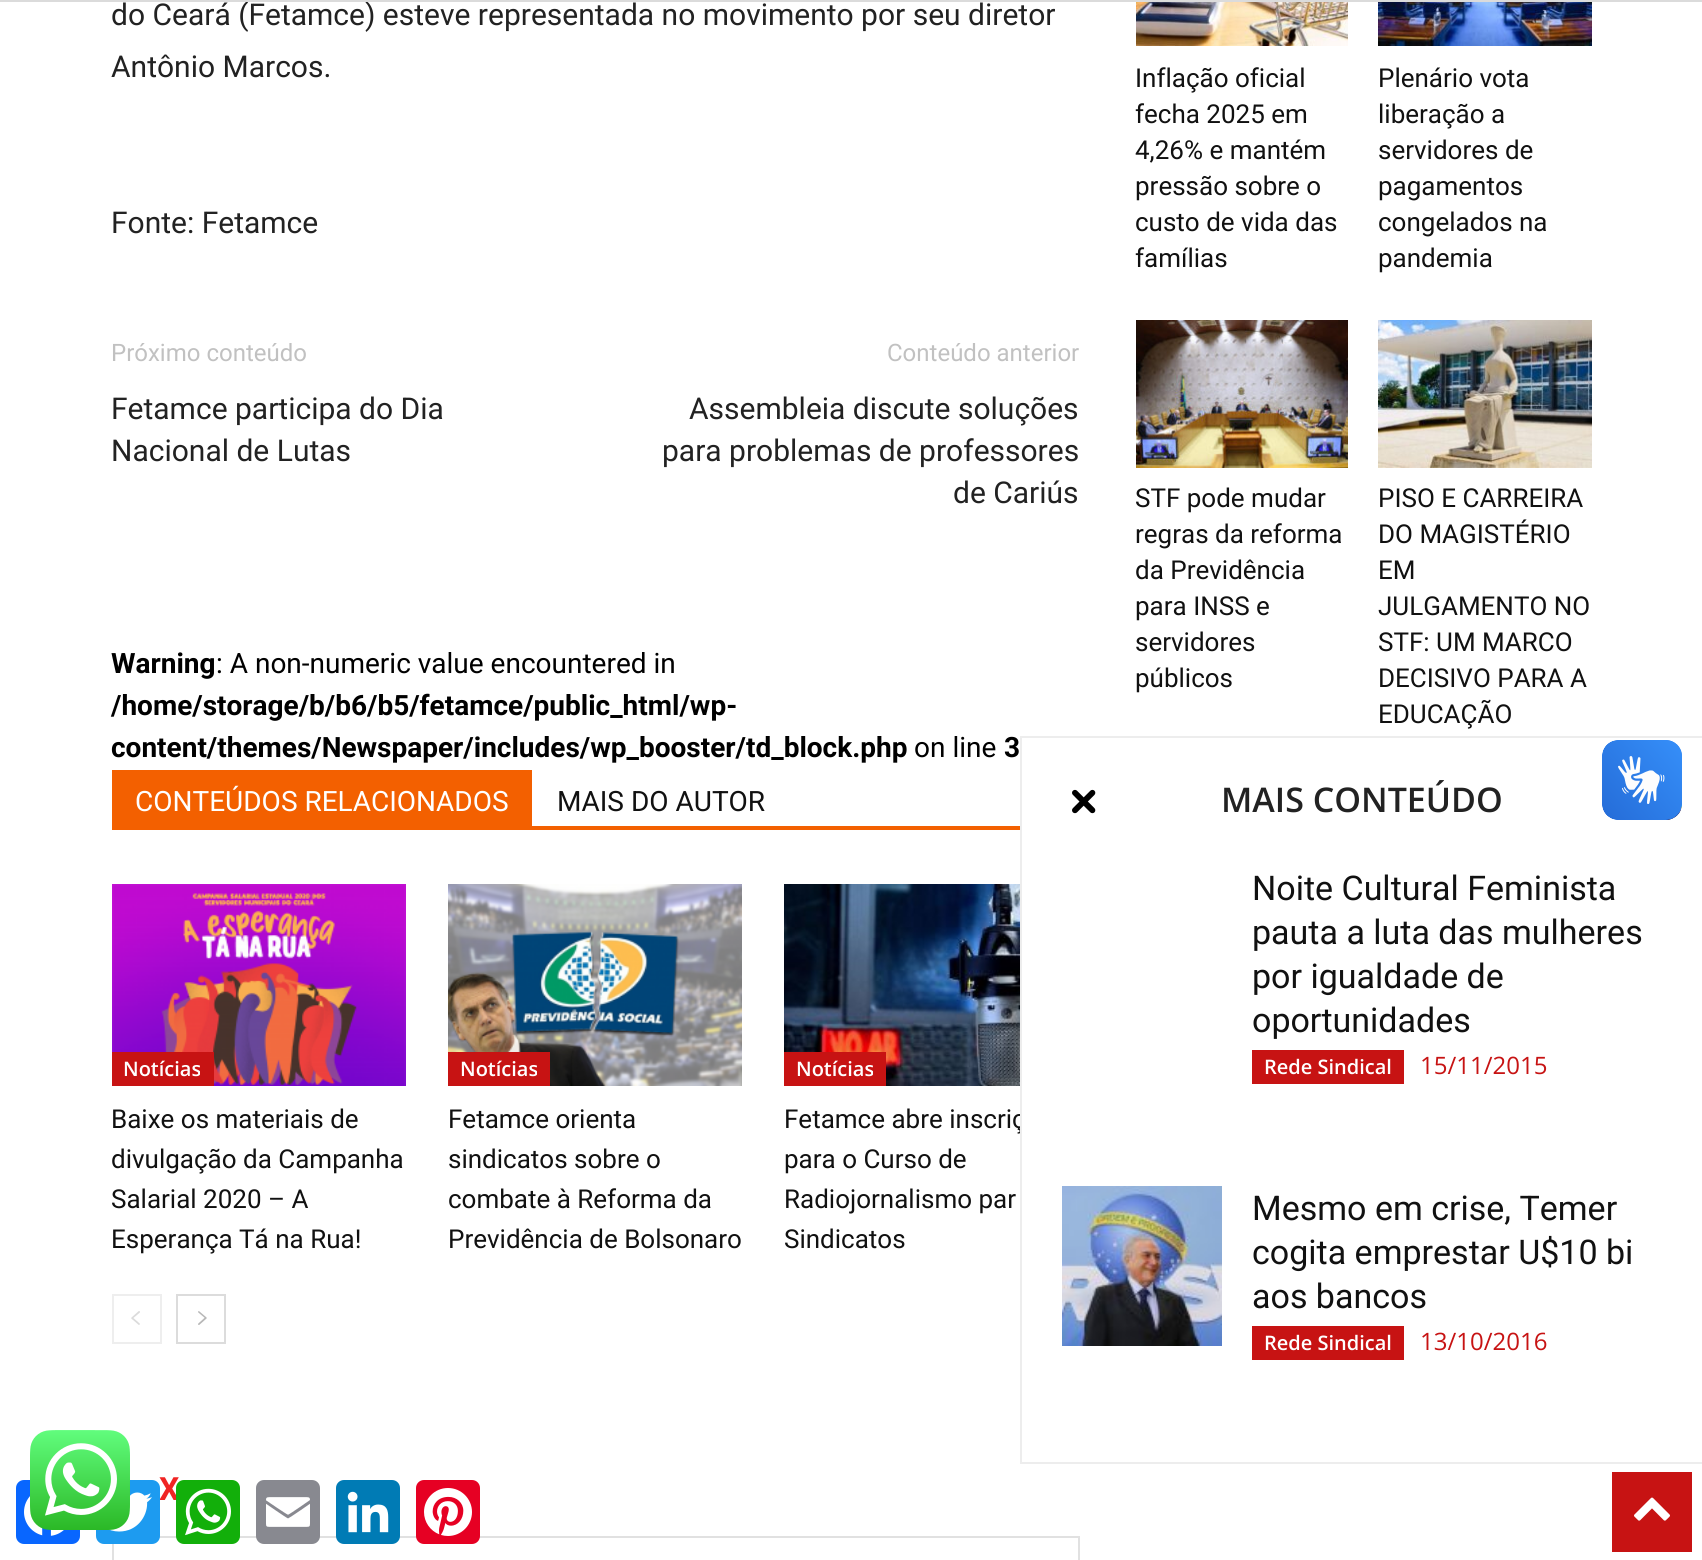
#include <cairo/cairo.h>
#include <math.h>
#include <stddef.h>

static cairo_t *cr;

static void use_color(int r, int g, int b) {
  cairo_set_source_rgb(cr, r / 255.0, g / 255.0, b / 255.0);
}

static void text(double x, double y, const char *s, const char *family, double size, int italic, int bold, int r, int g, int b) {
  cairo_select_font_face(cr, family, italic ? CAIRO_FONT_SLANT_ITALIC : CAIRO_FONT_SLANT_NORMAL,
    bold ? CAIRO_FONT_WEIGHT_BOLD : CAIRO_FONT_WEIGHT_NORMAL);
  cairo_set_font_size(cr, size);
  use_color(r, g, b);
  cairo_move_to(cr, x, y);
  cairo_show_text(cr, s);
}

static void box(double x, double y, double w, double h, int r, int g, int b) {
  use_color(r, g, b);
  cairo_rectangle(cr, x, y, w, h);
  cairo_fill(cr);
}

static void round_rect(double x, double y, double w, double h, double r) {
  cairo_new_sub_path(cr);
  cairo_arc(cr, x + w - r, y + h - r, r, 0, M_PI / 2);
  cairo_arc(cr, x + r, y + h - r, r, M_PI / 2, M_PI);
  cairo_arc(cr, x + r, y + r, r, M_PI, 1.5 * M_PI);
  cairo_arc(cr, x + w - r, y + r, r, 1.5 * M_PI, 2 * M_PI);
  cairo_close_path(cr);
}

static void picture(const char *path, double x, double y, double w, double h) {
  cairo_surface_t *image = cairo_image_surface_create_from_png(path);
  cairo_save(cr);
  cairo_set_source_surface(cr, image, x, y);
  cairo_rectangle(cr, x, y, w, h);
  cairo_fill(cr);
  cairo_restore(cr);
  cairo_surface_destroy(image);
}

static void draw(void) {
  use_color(255, 255, 255);
  cairo_paint(cr);
  box(112, 826, 908, 4, 243, 96, 0);
  box(112, 770, 420, 56, 243, 96, 0);
  picture("img_01.png", 112, 884, 294, 202);
  box(112, 1052, 102, 34, 199, 19, 19);
  picture("img_02.png", 448, 884, 294, 202);
  box(448, 1052, 102, 34, 199, 19, 19);
  picture("img_03.png", 784, 884, 236, 202);
  box(784, 1052, 102, 34, 199, 19, 19);
  cairo_rectangle(cr, 113, 1295, 48, 48);
  use_color(238, 238, 238);
  cairo_stroke(cr);
  picture("img_04.png", 131, 1311, 9, 14);
  cairo_rectangle(cr, 177, 1295, 48, 48);
  use_color(220, 220, 220);
  cairo_stroke(cr);
  picture("img_05.png", 198, 1311, 9, 14);
  cairo_rectangle(cr, 113, 1537, 966, 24);
  use_color(225, 225, 225);
  cairo_stroke(cr);
  picture("img_06.png", 1136, 2, 212, 44);
  picture("img_07.png", 1378, 2, 214, 44);
  picture("img_08.png", 1136, 320, 212, 148);
  picture("img_09.png", 1378, 320, 214, 148);
  picture("img_10.png", 1602, 740, 80, 80);
  picture("img_11.png", 1602, 740, 80, 80);
  box(1020, 736, 682, 2, 237, 237, 237);
  box(1020, 1462, 682, 2, 237, 237, 237);
  picture("img_12.png", 1072, 789, 24, 25);
  box(1252, 1050, 152, 34, 199, 19, 19);
  picture("img_13.png", 1062, 1186, 160, 160);
  box(1252, 1326, 152, 34, 199, 19, 19);
  box(1612, 1472, 80, 80, 199, 19, 19);
  picture("img_15.png", 1634, 1497, 36, 24);
  use_color(8, 102, 255);
  round_rect(16, 1480, 64, 64, 8);
  cairo_fill(cr);
  picture("img_16.png", 24, 1496, 40, 40);
  use_color(136, 137, 144);
  round_rect(256, 1480, 64, 64, 8);
  cairo_fill(cr);
  picture("img_19.png", 266, 1497, 44, 30);
  use_color(0, 123, 181);
  round_rect(336, 1480, 64, 64, 8);
  cairo_fill(cr);
  picture("img_20.png", 347, 1491, 42, 42);
  use_color(230, 0, 35);
  round_rect(416, 1480, 64, 64, 8);
  cairo_fill(cr);
  picture("img_21.png", 424, 1488, 48, 48);
  text(111, 25, "do Ceará (Fetamce) esteve representada no movimento por seu diretor", "Roboto", 30, 0, 0, 34, 34, 34);
  box(0, 0, 1702, 2, 219, 219, 219);
  text(111, 77, "Antônio Marcos.", "Roboto", 30, 0, 0, 34, 34, 34);
  text(111, 233, "Fonte: Fetamce", "Roboto", 30, 0, 0, 34, 34, 34);
  text(111, 361, "Próximo conteúdo", "Roboto", 24, 0, 0, 193, 193, 193);
  text(111, 419, "Fetamce participa do Dia", "Roboto", 30, 0, 0, 34, 34, 34);
  text(111, 461, "Nacional de Lutas", "Roboto", 30, 0, 0, 34, 34, 34);
  text(887, 361, "Conteúdo anterior", "Roboto", 24, 0, 0, 193, 193, 193);
  text(689, 419, "Assembleia discute soluções", "Roboto", 30, 0, 0, 34, 34, 34);
  text(662, 461, "para problemas de professores", "Roboto", 30, 0, 0, 34, 34, 34);
  text(953, 503, "de Cariús", "Roboto", 30, 0, 0, 34, 34, 34);
  text(111, 673, "Warning", "Roboto", 28, 0, 1, 0, 0, 0);
  text(216, 673, ": A non-numeric value encountered in", "Roboto", 28, 0, 0, 0, 0, 0);
  text(111, 715, "/home/storage/b/b6/b5/fetamce/public_html/wp-", "Roboto", 28, 0, 1, 0, 0, 0);
  text(111, 757, "content/themes/Newspaper/includes/wp_booster/td_block.php", "Roboto", 28, 0, 1, 0, 0, 0);
  text(914, 757, "on line", "Roboto", 28, 0, 0, 0, 0, 0);
  text(1004, 757, "3", "Roboto", 28, 0, 1, 0, 0, 0);
  text(135, 811, "CONTEÚDOS RELACIONADOS", "Roboto", 28, 0, 0, 255, 255, 255);
  text(557, 811, "MAIS DO AUTOR", "Roboto", 28, 0, 0, 17, 17, 17);
  text(123, 1076, "Notícias", "Open Sans SemiBold", 20, 0, 0, 255, 255, 255);
  text(111, 1128, "Baixe os materiais de", "Roboto", 26, 0, 0, 17, 17, 17);
  text(111, 1168, "divulgação da Campanha", "Roboto", 26, 0, 0, 17, 17, 17);
  text(111, 1208, "Salarial 2020 – A", "Roboto", 26, 0, 0, 17, 17, 17);
  text(111, 1248, "Esperança Tá na Rua!", "Roboto", 26, 0, 0, 17, 17, 17);
  text(460, 1076, "Notícias", "Open Sans SemiBold", 20, 0, 0, 255, 255, 255);
  text(448, 1128, "Fetamce orienta", "Roboto", 26, 0, 0, 17, 17, 17);
  text(448, 1168, "sindicatos sobre o", "Roboto", 26, 0, 0, 17, 17, 17);
  text(448, 1208, "combate à Reforma da", "Roboto", 26, 0, 0, 17, 17, 17);
  text(448, 1248, "Previdência de Bolsonaro", "Roboto", 26, 0, 0, 17, 17, 17);
  text(796, 1076, "Notícias", "Open Sans SemiBold", 20, 0, 0, 255, 255, 255);
  text(784, 1128, "Fetamce abre inscriç", "Roboto", 26, 0, 0, 17, 17, 17);
  text(784, 1168, "para o Curso de", "Roboto", 26, 0, 0, 17, 17, 17);
  text(784, 1208, "Radiojornalismo par", "Roboto", 26, 0, 0, 17, 17, 17);
  text(784, 1248, "Sindicatos", "Roboto", 26, 0, 0, 17, 17, 17);
  text(159, 1500, "X", "Roboto", 32, 0, 1, 240, 36, 35);
  text(1135, 87, "Inflação oficial", "Roboto", 26, 0, 0, 17, 17, 17);
  text(1135, 123, "fecha 2025 em", "Roboto", 26, 0, 0, 17, 17, 17);
  text(1135, 159, "4,26% e mantém", "Roboto", 26, 0, 0, 17, 17, 17);
  text(1135, 195, "pressão sobre o", "Roboto", 26, 0, 0, 17, 17, 17);
  text(1135, 231, "custo de vida das", "Roboto", 26, 0, 0, 17, 17, 17);
  text(1135, 267, "famílias", "Roboto", 26, 0, 0, 17, 17, 17);
  text(1378, 87, "Plenário vota", "Roboto", 26, 0, 0, 17, 17, 17);
  text(1378, 123, "liberação a", "Roboto", 26, 0, 0, 17, 17, 17);
  text(1378, 159, "servidores de", "Roboto", 26, 0, 0, 17, 17, 17);
  text(1378, 195, "pagamentos", "Roboto", 26, 0, 0, 17, 17, 17);
  text(1378, 231, "congelados na", "Roboto", 26, 0, 0, 17, 17, 17);
  text(1378, 267, "pandemia", "Roboto", 26, 0, 0, 17, 17, 17);
  text(1135, 507, "STF pode mudar", "Roboto", 26, 0, 0, 17, 17, 17);
  text(1135, 543, "regras da reforma", "Roboto", 26, 0, 0, 17, 17, 17);
  text(1135, 579, "da Previdência", "Roboto", 26, 0, 0, 17, 17, 17);
  text(1135, 615, "para INSS e", "Roboto", 26, 0, 0, 17, 17, 17);
  text(1135, 651, "servidores", "Roboto", 26, 0, 0, 17, 17, 17);
  text(1135, 687, "públicos", "Roboto", 26, 0, 0, 17, 17, 17);
  text(1378, 507, "PISO E CARREIRA", "Roboto", 26, 0, 0, 17, 17, 17);
  text(1378, 543, "DO MAGISTÉRIO", "Roboto", 26, 0, 0, 17, 17, 17);
  text(1378, 579, "EM", "Roboto", 26, 0, 0, 17, 17, 17);
  text(1378, 615, "JULGAMENTO NO", "Roboto", 26, 0, 0, 17, 17, 17);
  text(1378, 651, "STF: UM MARCO", "Roboto", 26, 0, 0, 17, 17, 17);
  text(1378, 687, "DECISIVO PARA A", "Roboto", 26, 0, 0, 17, 17, 17);
  text(1378, 723, "EDUCAÇÃO", "Roboto", 26, 0, 0, 17, 17, 17);
  box(1022, 1114, 4, 14, 255, 255, 255);
  box(1020, 736, 2, 728, 237, 237, 237);
  text(1221, 812, "MAIS CONTEÚDO", "Open Sans SemiBold", 34, 0, 0, 34, 34, 34);
  text(1252, 900, "Noite Cultural Feminista", "Roboto", 34, 0, 0, 17, 17, 17);
  text(1252, 944, "pauta a luta das mulheres", "Roboto", 34, 0, 0, 17, 17, 17);
  text(1252, 988, "por igualdade de", "Roboto", 34, 0, 0, 17, 17, 17);
  text(1252, 1032, "oportunidades", "Roboto", 34, 0, 0, 17, 17, 17);
  text(1264, 1074, "Rede Sindical", "Open Sans SemiBold", 20, 0, 0, 255, 255, 255);
  text(1420, 1074, "15/11/2015", "Open Sans", 24, 0, 0, 199, 19, 19);
  text(1252, 1220, "Mesmo em crise, Temer", "Roboto", 34, 0, 0, 17, 17, 17);
  text(1252, 1264, "cogita emprestar U$10 bi", "Roboto", 34, 0, 0, 17, 17, 17);
  text(1252, 1308, "aos bancos", "Roboto", 34, 0, 0, 17, 17, 17);
  text(1264, 1350, "Rede Sindical", "Open Sans SemiBold", 20, 0, 0, 255, 255, 255);
  text(1420, 1350, "13/10/2016", "Open Sans", 24, 0, 0, 199, 19, 19);
  use_color(29, 155, 240);
  round_rect(96, 1480, 64, 64, 8);
  cairo_fill(cr);
  picture("img_17.png", 108, 1492, 44, 40);
  picture("img_14.png", 30, 1430, 100, 100);
  use_color(18, 175, 10);
  round_rect(176, 1480, 64, 64, 8);
  cairo_fill(cr);
  picture("img_18.png", 185, 1488, 46, 48);
}

int main(void) {
  cairo_surface_t *surface = cairo_image_surface_create(CAIRO_FORMAT_RGB24, 1702, 1560);
  cr = cairo_create(surface);
  cairo_font_options_t *options = cairo_font_options_create();
  cairo_font_options_set_hint_metrics(options, CAIRO_HINT_METRICS_OFF);
  cairo_font_options_set_hint_style(options, CAIRO_HINT_STYLE_NONE);
  cairo_set_font_options(cr, options);
  cairo_set_miter_limit(cr, 4);
  draw();
  cairo_surface_write_to_png(surface, "out.png");
  cairo_font_options_destroy(options);
  cairo_destroy(cr);
  cairo_surface_destroy(surface);
  return 0;
}
